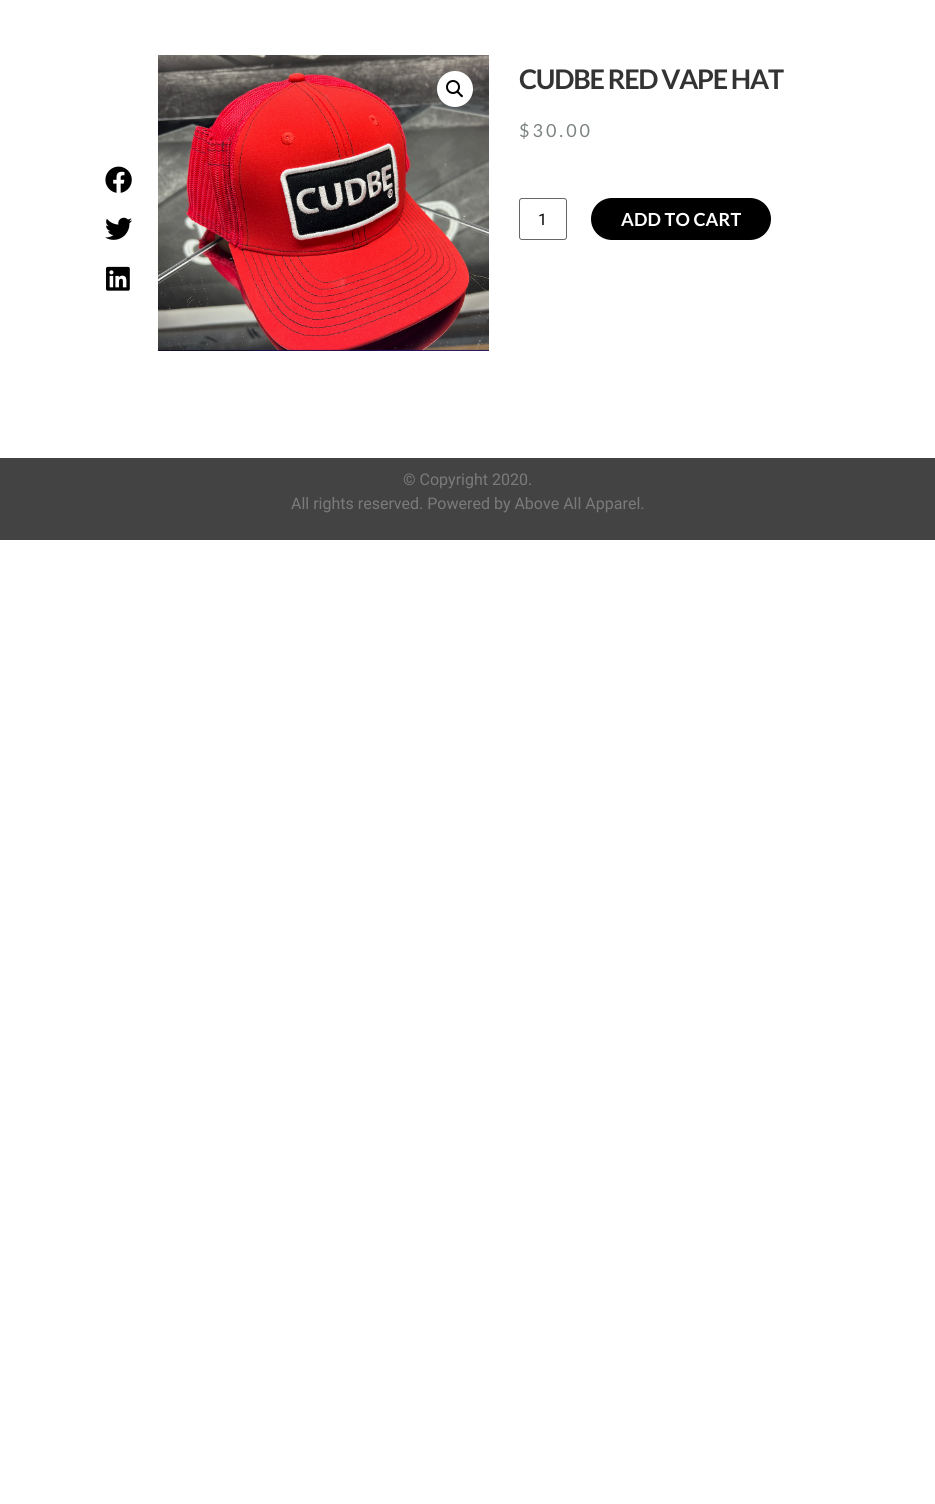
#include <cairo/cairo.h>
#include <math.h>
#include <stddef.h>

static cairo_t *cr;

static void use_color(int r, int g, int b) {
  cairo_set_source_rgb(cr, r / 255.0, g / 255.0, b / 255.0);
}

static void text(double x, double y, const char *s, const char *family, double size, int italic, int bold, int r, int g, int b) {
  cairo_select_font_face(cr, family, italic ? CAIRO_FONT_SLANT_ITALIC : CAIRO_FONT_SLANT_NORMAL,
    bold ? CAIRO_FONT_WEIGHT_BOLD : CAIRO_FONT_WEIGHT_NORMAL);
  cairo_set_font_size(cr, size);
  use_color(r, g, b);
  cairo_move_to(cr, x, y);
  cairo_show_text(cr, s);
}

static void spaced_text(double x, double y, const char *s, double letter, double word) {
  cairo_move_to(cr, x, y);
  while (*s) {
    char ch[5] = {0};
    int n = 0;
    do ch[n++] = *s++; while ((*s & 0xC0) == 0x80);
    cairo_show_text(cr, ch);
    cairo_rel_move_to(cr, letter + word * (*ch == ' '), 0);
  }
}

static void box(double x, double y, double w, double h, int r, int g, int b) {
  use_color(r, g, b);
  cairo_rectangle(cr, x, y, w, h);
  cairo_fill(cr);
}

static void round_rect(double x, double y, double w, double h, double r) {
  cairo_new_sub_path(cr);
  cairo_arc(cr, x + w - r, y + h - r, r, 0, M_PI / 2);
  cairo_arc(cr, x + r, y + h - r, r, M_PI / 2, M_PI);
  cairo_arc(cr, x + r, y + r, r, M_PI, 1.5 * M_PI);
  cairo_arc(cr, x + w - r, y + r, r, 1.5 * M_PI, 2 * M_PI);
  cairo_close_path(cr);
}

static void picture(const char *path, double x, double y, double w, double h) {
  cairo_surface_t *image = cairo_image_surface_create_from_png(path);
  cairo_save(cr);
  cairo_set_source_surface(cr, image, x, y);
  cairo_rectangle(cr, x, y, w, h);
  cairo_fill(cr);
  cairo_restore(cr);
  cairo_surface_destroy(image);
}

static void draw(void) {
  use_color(255, 255, 255);
  cairo_paint(cr);
  picture("img_01.png", 105, 166, 27, 27);
  picture("img_02.png", 105, 217, 27, 23);
  picture("img_03.png", 106, 266, 24, 25);
  picture("img_04.png", 158, 55, 331, 296);
  use_color(255, 255, 255);
  cairo_arc(cr, 455, 89, 18, 0, 2 * M_PI);
  cairo_fill(cr);
  cairo_arc(cr, 453, 87, 6, 0, 2 * M_PI);
  use_color(0, 0, 0);
  cairo_stroke(cr);
  cairo_new_path(cr);
  cairo_move_to(cr, 457, 91);
  cairo_curve_to(cr, 458, 90, 460, 92.5, 460.5, 93.5);
  cairo_curve_to(cr, 461, 94, 464, 95.5, 462.5, 97);
  cairo_curve_to(cr, 461.5, 98, 459.5, 95.5, 459, 94.5);
  cairo_curve_to(cr, 458.5, 94, 455.5, 92.5, 457, 91);
  cairo_close_path(cr);
  cairo_fill(cr);
  round_rect(519.5, 198.5, 47, 41, 2.5);
  use_color(102, 102, 102);
  cairo_set_line_width(cr, 1);
  cairo_stroke(cr);
  use_color(0, 0, 0);
  round_rect(591, 198, 180, 42, 21);
  cairo_fill(cr);
  box(0, 458, 935, 82, 67, 67, 67);
  cairo_select_font_face(cr, "Lato", CAIRO_FONT_SLANT_NORMAL, CAIRO_FONT_WEIGHT_BOLD);
  cairo_set_font_size(cr, 27);
  use_color(51, 51, 51);
  spaced_text(519, 89, "CUDBE RED VAPE HAT", -1.25, 0);
  cairo_select_font_face(cr, "Lato", CAIRO_FONT_SLANT_NORMAL, CAIRO_FONT_WEIGHT_NORMAL);
  cairo_set_font_size(cr, 18);
  use_color(125, 132, 131);
  spaced_text(519, 137, "$30.00", 3, 0);
  text(538, 225, "1", "Roboto", 16, 0, 0, 0, 0, 0);
  cairo_select_font_face(cr, "Lato", CAIRO_FONT_SLANT_NORMAL, CAIRO_FONT_WEIGHT_BOLD);
  cairo_set_font_size(cr, 18);
  use_color(255, 255, 255);
  spaced_text(621, 226, "ADD TO CART", 0.1, 0);
  text(403, 485, "© Copyright 2020.", "Roboto", 16, 0, 0, 122, 122, 122);
  text(291, 509, "All rights reserved. Powered by Above All Apparel.", "Roboto", 16, 0, 0, 122, 122, 122);
}

int main(void) {
  cairo_surface_t *surface = cairo_image_surface_create(CAIRO_FORMAT_RGB24, 935, 1504);
  cr = cairo_create(surface);
  cairo_font_options_t *options = cairo_font_options_create();
  cairo_font_options_set_hint_metrics(options, CAIRO_HINT_METRICS_OFF);
  cairo_font_options_set_hint_style(options, CAIRO_HINT_STYLE_NONE);
  cairo_set_font_options(cr, options);
  cairo_set_miter_limit(cr, 4);
  draw();
  cairo_surface_write_to_png(surface, "out.png");
  cairo_font_options_destroy(options);
  cairo_destroy(cr);
  cairo_surface_destroy(surface);
  return 0;
}
